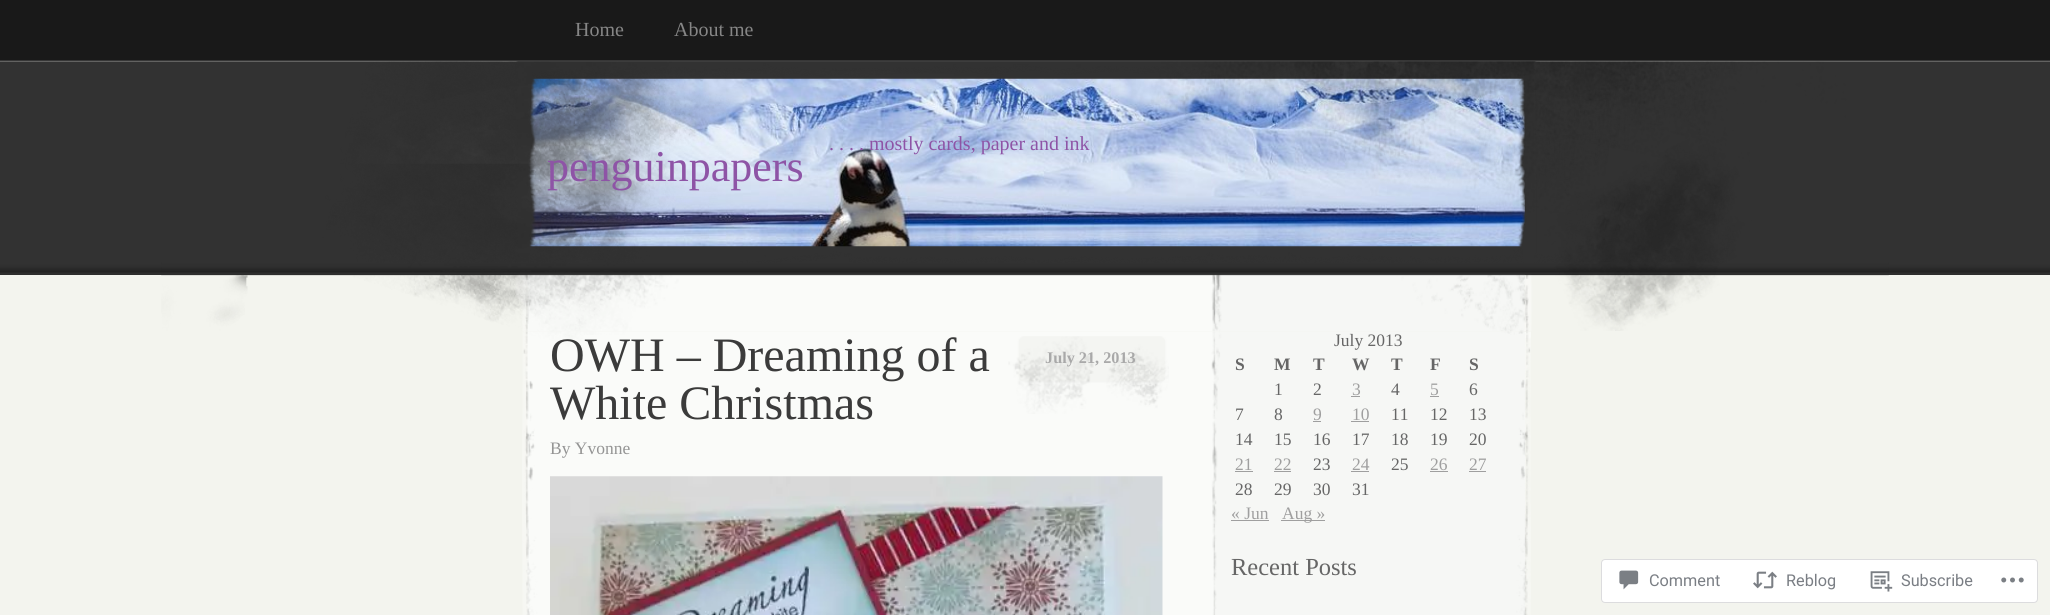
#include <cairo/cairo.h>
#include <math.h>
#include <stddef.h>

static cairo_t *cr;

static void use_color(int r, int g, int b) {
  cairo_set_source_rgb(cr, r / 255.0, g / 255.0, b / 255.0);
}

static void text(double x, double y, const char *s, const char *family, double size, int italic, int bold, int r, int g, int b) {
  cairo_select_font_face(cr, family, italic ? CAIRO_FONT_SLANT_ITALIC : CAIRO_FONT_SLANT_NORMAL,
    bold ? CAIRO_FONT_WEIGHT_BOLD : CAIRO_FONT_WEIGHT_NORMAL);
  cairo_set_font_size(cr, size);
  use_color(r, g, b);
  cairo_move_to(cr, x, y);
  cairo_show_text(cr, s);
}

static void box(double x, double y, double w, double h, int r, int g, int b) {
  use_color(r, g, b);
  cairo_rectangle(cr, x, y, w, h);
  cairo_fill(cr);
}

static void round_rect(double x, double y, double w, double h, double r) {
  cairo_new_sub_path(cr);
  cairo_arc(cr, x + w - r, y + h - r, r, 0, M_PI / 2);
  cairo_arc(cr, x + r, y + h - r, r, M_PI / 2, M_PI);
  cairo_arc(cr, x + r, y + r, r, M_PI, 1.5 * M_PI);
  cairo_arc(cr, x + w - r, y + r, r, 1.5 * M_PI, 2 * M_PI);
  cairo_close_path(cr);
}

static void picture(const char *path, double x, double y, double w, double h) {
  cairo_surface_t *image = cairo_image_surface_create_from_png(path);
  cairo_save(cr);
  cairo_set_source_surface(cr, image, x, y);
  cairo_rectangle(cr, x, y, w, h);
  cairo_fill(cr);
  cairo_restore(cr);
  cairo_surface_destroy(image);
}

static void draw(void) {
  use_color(243, 244, 238);
  cairo_paint(cr);
  box(0, 0, 2050, 60, 25, 25, 25);
  box(0, 60, 2050, 1, 55, 55, 55);
  picture("img_01.png", 0, 61, 2050, 214);
  picture("img_02.png", 528, 78, 997, 169);
  picture("img_03.png", 161, 61, 1728, 270);
  picture("img_04.png", 522, 331, 1009, 284);
  picture("img_05.png", 1008, 336, 161, 78);
  picture("img_06.png", 550, 476, 613, 139);
  box(1351, 396, 9, 1, 159, 159, 159);
  box(1430, 396, 9, 1, 159, 159, 159);
  box(1313, 421, 8, 1, 159, 159, 159);
  box(1351, 421, 18, 1, 159, 159, 159);
  box(1235, 471, 18, 1, 159, 159, 159);
  box(1274, 471, 17, 1, 159, 159, 159);
  box(1351, 471, 18, 1, 159, 159, 159);
  box(1430, 471, 18, 1, 159, 159, 159);
  box(1469, 471, 17, 1, 159, 159, 159);
  box(1231, 520, 38, 1, 159, 159, 159);
  box(1281, 520, 44, 1, 159, 159, 159);
  use_color(255, 255, 255);
  round_rect(1601.5, 559.5, 436, 43, 3.5);
  cairo_fill_preserve(cr);
  use_color(220, 220, 222);
  cairo_set_line_width(cr, 1);
  cairo_stroke(cr);
  picture("img_07.png", 1619, 570, 20, 20);
  picture("img_08.png", 1753, 571, 24, 18);
  picture("img_09.png", 1870, 571, 23, 21);
  picture("img_10.png", 2001, 577, 23, 6);
  text(575, 36, "Home", "Liberation Serif", 20, 0, 0, 134, 134, 134);
  text(674, 36, "About me", "Liberation Serif", 20, 0, 0, 134, 134, 134);
  text(829, 150, ". . . . mostly cards, paper and ink", "Liberation Serif", 20, 0, 0, 142, 84, 166);
  text(547, 181, "penguinpapers", "Liberation Serif", 44, 0, 0, 142, 84, 166);
  text(550, 371, "OWH – Dreaming of a", "Liberation Serif", 48, 0, 0, 59, 59, 59);
  text(550, 419, "White Christmas", "Liberation Serif", 48, 0, 0, 59, 59, 59);
  text(1045, 363, "July 21, 2013", "Liberation Serif", 16.25, 0, 1, 169, 169, 169);
  text(550, 454, "By Yvonne", "Liberation Serif", 17.5, 0, 0, 148, 148, 148);
  text(1334, 346, "July 2013", "Liberation Serif", 17.5, 0, 0, 102, 102, 102);
  text(1235, 370, "S", "Liberation Serif", 17.5, 0, 1, 102, 102, 102);
  text(1274, 370, "M", "Liberation Serif", 17.5, 0, 1, 102, 102, 102);
  text(1313, 370, "T", "Liberation Serif", 17.5, 0, 1, 102, 102, 102);
  text(1352, 370, "W", "Liberation Serif", 17.5, 0, 1, 102, 102, 102);
  text(1391, 370, "T", "Liberation Serif", 17.5, 0, 1, 102, 102, 102);
  text(1430, 370, "F", "Liberation Serif", 17.5, 0, 1, 102, 102, 102);
  text(1469, 370, "S", "Liberation Serif", 17.5, 0, 1, 102, 102, 102);
  text(1274, 395, "1", "Liberation Serif", 17.5, 0, 0, 102, 102, 102);
  text(1313, 395, "2", "Liberation Serif", 17.5, 0, 0, 102, 102, 102);
  text(1352, 395, "3", "Liberation Serif", 17.5, 0, 0, 159, 159, 159);
  text(1391, 395, "4", "Liberation Serif", 17.5, 0, 0, 102, 102, 102);
  text(1430, 395, "5", "Liberation Serif", 17.5, 0, 0, 159, 159, 159);
  text(1469, 395, "6", "Liberation Serif", 17.5, 0, 0, 102, 102, 102);
  text(1235, 420, "7", "Liberation Serif", 17.5, 0, 0, 102, 102, 102);
  text(1274, 420, "8", "Liberation Serif", 17.5, 0, 0, 102, 102, 102);
  text(1313, 420, "9", "Liberation Serif", 17.5, 0, 0, 159, 159, 159);
  text(1352, 420, "10", "Liberation Serif", 17.5, 0, 0, 159, 159, 159);
  text(1391, 420, "11", "Liberation Serif", 17.5, 0, 0, 102, 102, 102);
  text(1430, 420, "12", "Liberation Serif", 17.5, 0, 0, 102, 102, 102);
  text(1469, 420, "13", "Liberation Serif", 17.5, 0, 0, 102, 102, 102);
  text(1235, 445, "14", "Liberation Serif", 17.5, 0, 0, 102, 102, 102);
  text(1274, 445, "15", "Liberation Serif", 17.5, 0, 0, 102, 102, 102);
  text(1313, 445, "16", "Liberation Serif", 17.5, 0, 0, 102, 102, 102);
  text(1352, 445, "17", "Liberation Serif", 17.5, 0, 0, 102, 102, 102);
  text(1391, 445, "18", "Liberation Serif", 17.5, 0, 0, 102, 102, 102);
  text(1430, 445, "19", "Liberation Serif", 17.5, 0, 0, 102, 102, 102);
  text(1469, 445, "20", "Liberation Serif", 17.5, 0, 0, 102, 102, 102);
  text(1235, 470, "21", "Liberation Serif", 17.5, 0, 0, 159, 159, 159);
  text(1274, 470, "22", "Liberation Serif", 17.5, 0, 0, 159, 159, 159);
  text(1313, 470, "23", "Liberation Serif", 17.5, 0, 0, 102, 102, 102);
  text(1352, 470, "24", "Liberation Serif", 17.5, 0, 0, 159, 159, 159);
  text(1391, 470, "25", "Liberation Serif", 17.5, 0, 0, 102, 102, 102);
  text(1430, 470, "26", "Liberation Serif", 17.5, 0, 0, 159, 159, 159);
  text(1469, 470, "27", "Liberation Serif", 17.5, 0, 0, 159, 159, 159);
  text(1235, 495, "28", "Liberation Serif", 17.5, 0, 0, 102, 102, 102);
  text(1274, 495, "29", "Liberation Serif", 17.5, 0, 0, 102, 102, 102);
  text(1313, 495, "30", "Liberation Serif", 17.5, 0, 0, 102, 102, 102);
  text(1352, 495, "31", "Liberation Serif", 17.5, 0, 0, 102, 102, 102);
  text(1231, 519, "« Jun", "Liberation Serif", 17.5, 0, 0, 159, 159, 159);
  text(1282, 519, "Aug »", "Liberation Serif", 17.5, 0, 0, 159, 159, 159);
  text(1231, 575, "Recent Posts", "Liberation Serif", 24.5, 0, 0, 102, 102, 102);
  text(1649, 586, "Comment", "Roboto", 16.25, 0, 0, 122, 126, 132);
  text(1786, 586, "Reblog", "Roboto", 16.25, 0, 0, 122, 126, 132);
  text(1901, 586, "Subscribe", "Roboto", 16.25, 0, 0, 122, 126, 132);
}

int main(void) {
  cairo_surface_t *surface = cairo_image_surface_create(CAIRO_FORMAT_RGB24, 2050, 615);
  cr = cairo_create(surface);
  cairo_font_options_t *options = cairo_font_options_create();
  cairo_font_options_set_hint_metrics(options, CAIRO_HINT_METRICS_OFF);
  cairo_font_options_set_hint_style(options, CAIRO_HINT_STYLE_NONE);
  cairo_set_font_options(cr, options);
  cairo_set_miter_limit(cr, 4);
  draw();
  cairo_surface_write_to_png(surface, "out.png");
  cairo_font_options_destroy(options);
  cairo_destroy(cr);
  cairo_surface_destroy(surface);
  return 0;
}
